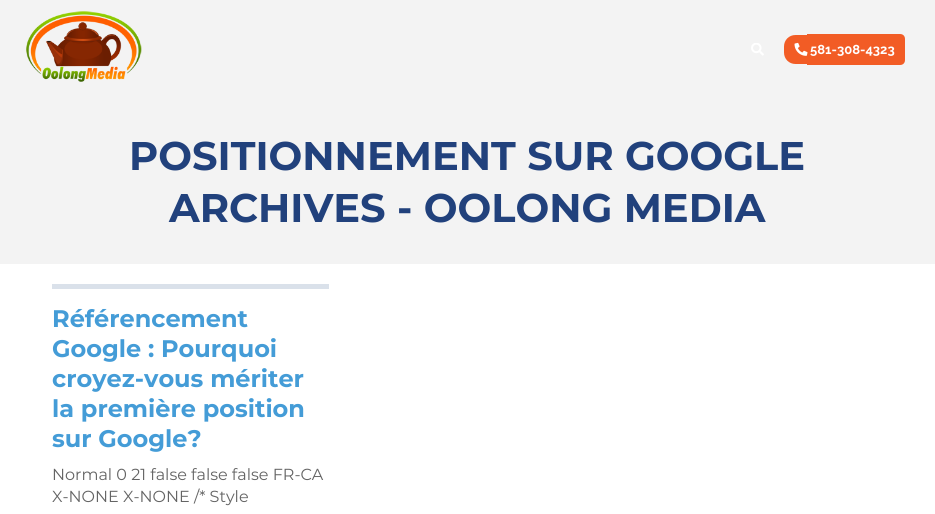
#include <cairo/cairo.h>
#include <math.h>
#include <stddef.h>

static cairo_t *cr;

static void use_color(int r, int g, int b) {
  cairo_set_source_rgb(cr, r / 255.0, g / 255.0, b / 255.0);
}

static void text(double x, double y, const char *s, const char *family, double size, int italic, int bold, int r, int g, int b) {
  cairo_select_font_face(cr, family, italic ? CAIRO_FONT_SLANT_ITALIC : CAIRO_FONT_SLANT_NORMAL,
    bold ? CAIRO_FONT_WEIGHT_BOLD : CAIRO_FONT_WEIGHT_NORMAL);
  cairo_set_font_size(cr, size);
  use_color(r, g, b);
  cairo_move_to(cr, x, y);
  cairo_show_text(cr, s);
}

static void box(double x, double y, double w, double h, int r, int g, int b) {
  use_color(r, g, b);
  cairo_rectangle(cr, x, y, w, h);
  cairo_fill(cr);
}

static void picture(const char *path, double x, double y, double w, double h) {
  cairo_surface_t *image = cairo_image_surface_create_from_png(path);
  cairo_save(cr);
  cairo_set_source_surface(cr, image, x, y);
  cairo_rectangle(cr, x, y, w, h);
  cairo_fill(cr);
  cairo_restore(cr);
  cairo_surface_destroy(image);
}

static void draw(void) {
  use_color(255, 255, 255);
  cairo_paint(cr);
  box(0, 0, 935, 264, 243, 243, 243);
  picture("img_01.png", 26, 11, 116, 71);
  picture("img_02.png", 751, 43, 13, 13);
  use_color(242, 92, 37);
  cairo_new_path(cr);
  cairo_move_to(cr, 795.5, 35);
  cairo_line_to(cr, 807, 35);
  cairo_line_to(cr, 807, 64);
  cairo_line_to(cr, 795.5, 64);
  cairo_curve_to(cr, 789, 64, 784, 59, 784, 52.5);
  cairo_line_to(cr, 784, 46.5);
  cairo_curve_to(cr, 784, 40, 789, 35, 795.5, 35);
  cairo_close_path(cr);
  cairo_fill(cr);
  box(807, 34, 88, 31, 242, 92, 37);
  cairo_new_path(cr);
  cairo_move_to(cr, 895, 34);
  cairo_line_to(cr, 900, 34);
  cairo_curve_to(cr, 903, 34, 905, 36, 905, 39);
  cairo_line_to(cr, 905, 60);
  cairo_curve_to(cr, 905, 63, 903, 65, 900, 65);
  cairo_line_to(cr, 895, 65);
  cairo_close_path(cr);
  cairo_fill(cr);
  picture("img_03.png", 794, 42, 14, 14);
  box(52, 284, 277, 5, 218, 225, 234);
  text(810, 54, "581-308-4323", "Raleway", 13, 0, 1, 255, 255, 255);
  text(129, 170, "POSITIONNEMENT SUR GOOGLE", "Montserrat", 40, 0, 1, 33, 65, 124);
  text(169, 222, "ARCHIVES - OOLONG MEDIA", "Montserrat", 40, 0, 1, 33, 65, 124);
  text(52, 327, "Référencement", "Montserrat", 24, 0, 1, 68, 156, 215);
  text(52, 357, "Google : Pourquoi", "Montserrat", 24, 0, 1, 68, 156, 215);
  text(52, 387, "croyez-vous mériter", "Montserrat", 24, 0, 1, 68, 156, 215);
  text(52, 417, "la première position", "Montserrat", 24, 0, 1, 68, 156, 215);
  text(52, 447, "sur Google?", "Montserrat", 24, 0, 1, 68, 156, 215);
  text(52, 480, "Normal 0 21 false false false FR-CA", "Montserrat", 16, 0, 0, 100, 100, 100);
  text(52, 502, "X-NONE X-NONE /* Style", "Montserrat", 16, 0, 0, 100, 100, 100);
}

int main(void) {
  cairo_surface_t *surface = cairo_image_surface_create(CAIRO_FORMAT_RGB24, 935, 514);
  cr = cairo_create(surface);
  cairo_font_options_t *options = cairo_font_options_create();
  cairo_font_options_set_hint_metrics(options, CAIRO_HINT_METRICS_OFF);
  cairo_font_options_set_hint_style(options, CAIRO_HINT_STYLE_NONE);
  cairo_set_font_options(cr, options);
  cairo_set_miter_limit(cr, 4);
  draw();
  cairo_surface_write_to_png(surface, "out.png");
  cairo_font_options_destroy(options);
  cairo_destroy(cr);
  cairo_surface_destroy(surface);
  return 0;
}
